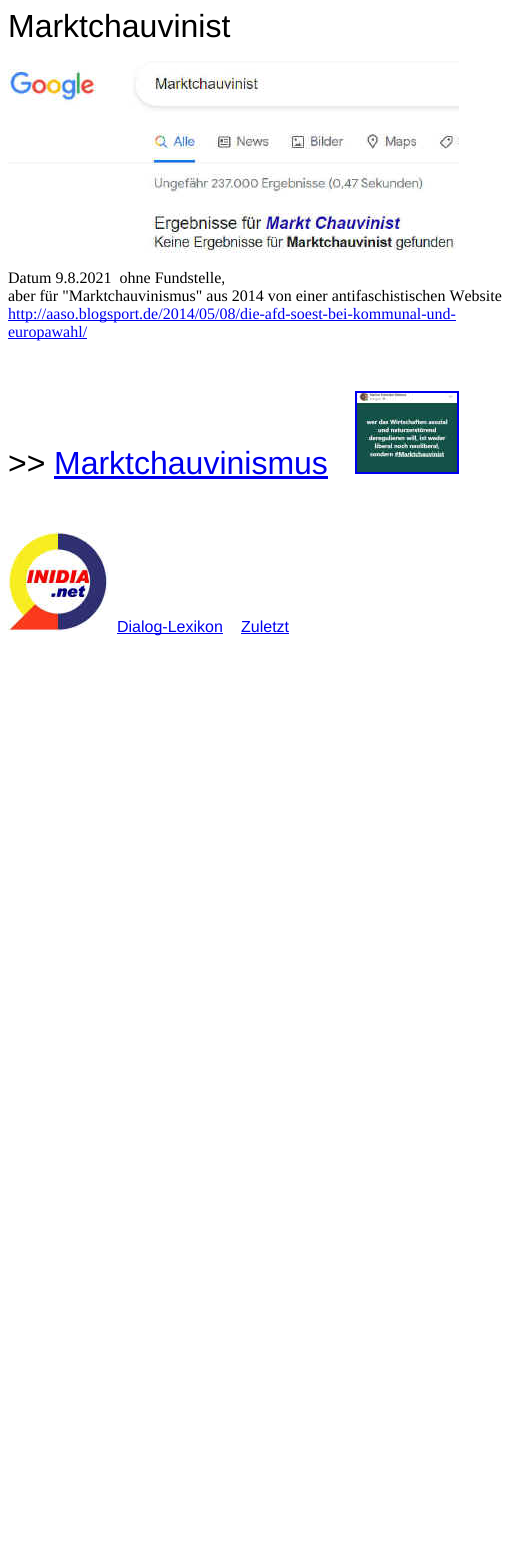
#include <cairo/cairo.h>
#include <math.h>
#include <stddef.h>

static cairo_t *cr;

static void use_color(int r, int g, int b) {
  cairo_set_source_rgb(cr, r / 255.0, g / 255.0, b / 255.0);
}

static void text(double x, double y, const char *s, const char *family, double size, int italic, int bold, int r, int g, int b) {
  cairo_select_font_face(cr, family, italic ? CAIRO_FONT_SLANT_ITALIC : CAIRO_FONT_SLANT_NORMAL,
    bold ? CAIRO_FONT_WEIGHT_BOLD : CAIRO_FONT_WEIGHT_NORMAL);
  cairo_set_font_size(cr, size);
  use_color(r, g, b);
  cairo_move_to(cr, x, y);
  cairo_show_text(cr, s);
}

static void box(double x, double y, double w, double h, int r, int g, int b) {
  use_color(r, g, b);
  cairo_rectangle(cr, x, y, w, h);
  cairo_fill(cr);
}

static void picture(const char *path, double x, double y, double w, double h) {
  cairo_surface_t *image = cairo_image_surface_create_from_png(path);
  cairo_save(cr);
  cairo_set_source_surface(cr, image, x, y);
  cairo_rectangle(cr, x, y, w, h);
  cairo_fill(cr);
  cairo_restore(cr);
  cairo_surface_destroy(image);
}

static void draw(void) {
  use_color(255, 255, 255);
  cairo_paint(cr);
  picture("img_01.png", 8, 61, 451, 192);
  box(8, 320, 448, 1, 0, 0, 238);
  box(8, 338, 79, 1, 0, 0, 238);
  cairo_rectangle(cr, 356, 392, 102, 81);
  cairo_stroke(cr);
  box(54, 476, 274, 3, 0, 0, 238);
  picture("img_02.png", 357, 393, 100, 79);
  picture("img_03.png", 8, 532, 100, 100);
  box(117, 633, 106, 1, 0, 0, 238);
  box(241, 633, 48, 1, 0, 0, 238);
  text(8, 37, "Marktchauvinist", "Liberation Sans", 32, 0, 0, 0, 0, 0);
  text(8, 283, "Datum 9.8.2021  ohne Fundstelle,", "Liberation Serif", 16, 0, 0, 0, 0, 0);
  text(8, 301, "aber für \"Marktchauvinismus\" aus 2014 von einer antifaschistischen Website", "Liberation Serif", 16, 0, 0, 0, 0, 0);
  text(8, 319, "http://aaso.blogsport.de/2014/05/08/die-afd-soest-bei-kommunal-und-", "Liberation Serif", 16, 0, 0, 0, 0, 238);
  text(8, 337, "europawahl/", "Liberation Serif", 16, 0, 0, 0, 0, 238);
  text(8, 474, ">>", "Liberation Sans", 32, 0, 0, 0, 0, 0);
  text(54, 474, "Marktchauvinismus", "Liberation Sans", 32, 0, 0, 0, 0, 238);
  text(117, 632, "Dialog-Lexikon", "Liberation Sans", 16, 0, 0, 0, 0, 238);
  text(241, 632, "Zuletzt", "Liberation Sans", 16, 0, 0, 0, 0, 238);
}

int main(void) {
  cairo_surface_t *surface = cairo_image_surface_create(CAIRO_FORMAT_RGB24, 514, 1563);
  cr = cairo_create(surface);
  cairo_font_options_t *options = cairo_font_options_create();
  cairo_font_options_set_hint_metrics(options, CAIRO_HINT_METRICS_OFF);
  cairo_font_options_set_hint_style(options, CAIRO_HINT_STYLE_NONE);
  cairo_set_font_options(cr, options);
  cairo_set_miter_limit(cr, 4);
  draw();
  cairo_surface_write_to_png(surface, "out.png");
  cairo_font_options_destroy(options);
  cairo_destroy(cr);
  cairo_surface_destroy(surface);
  return 0;
}
